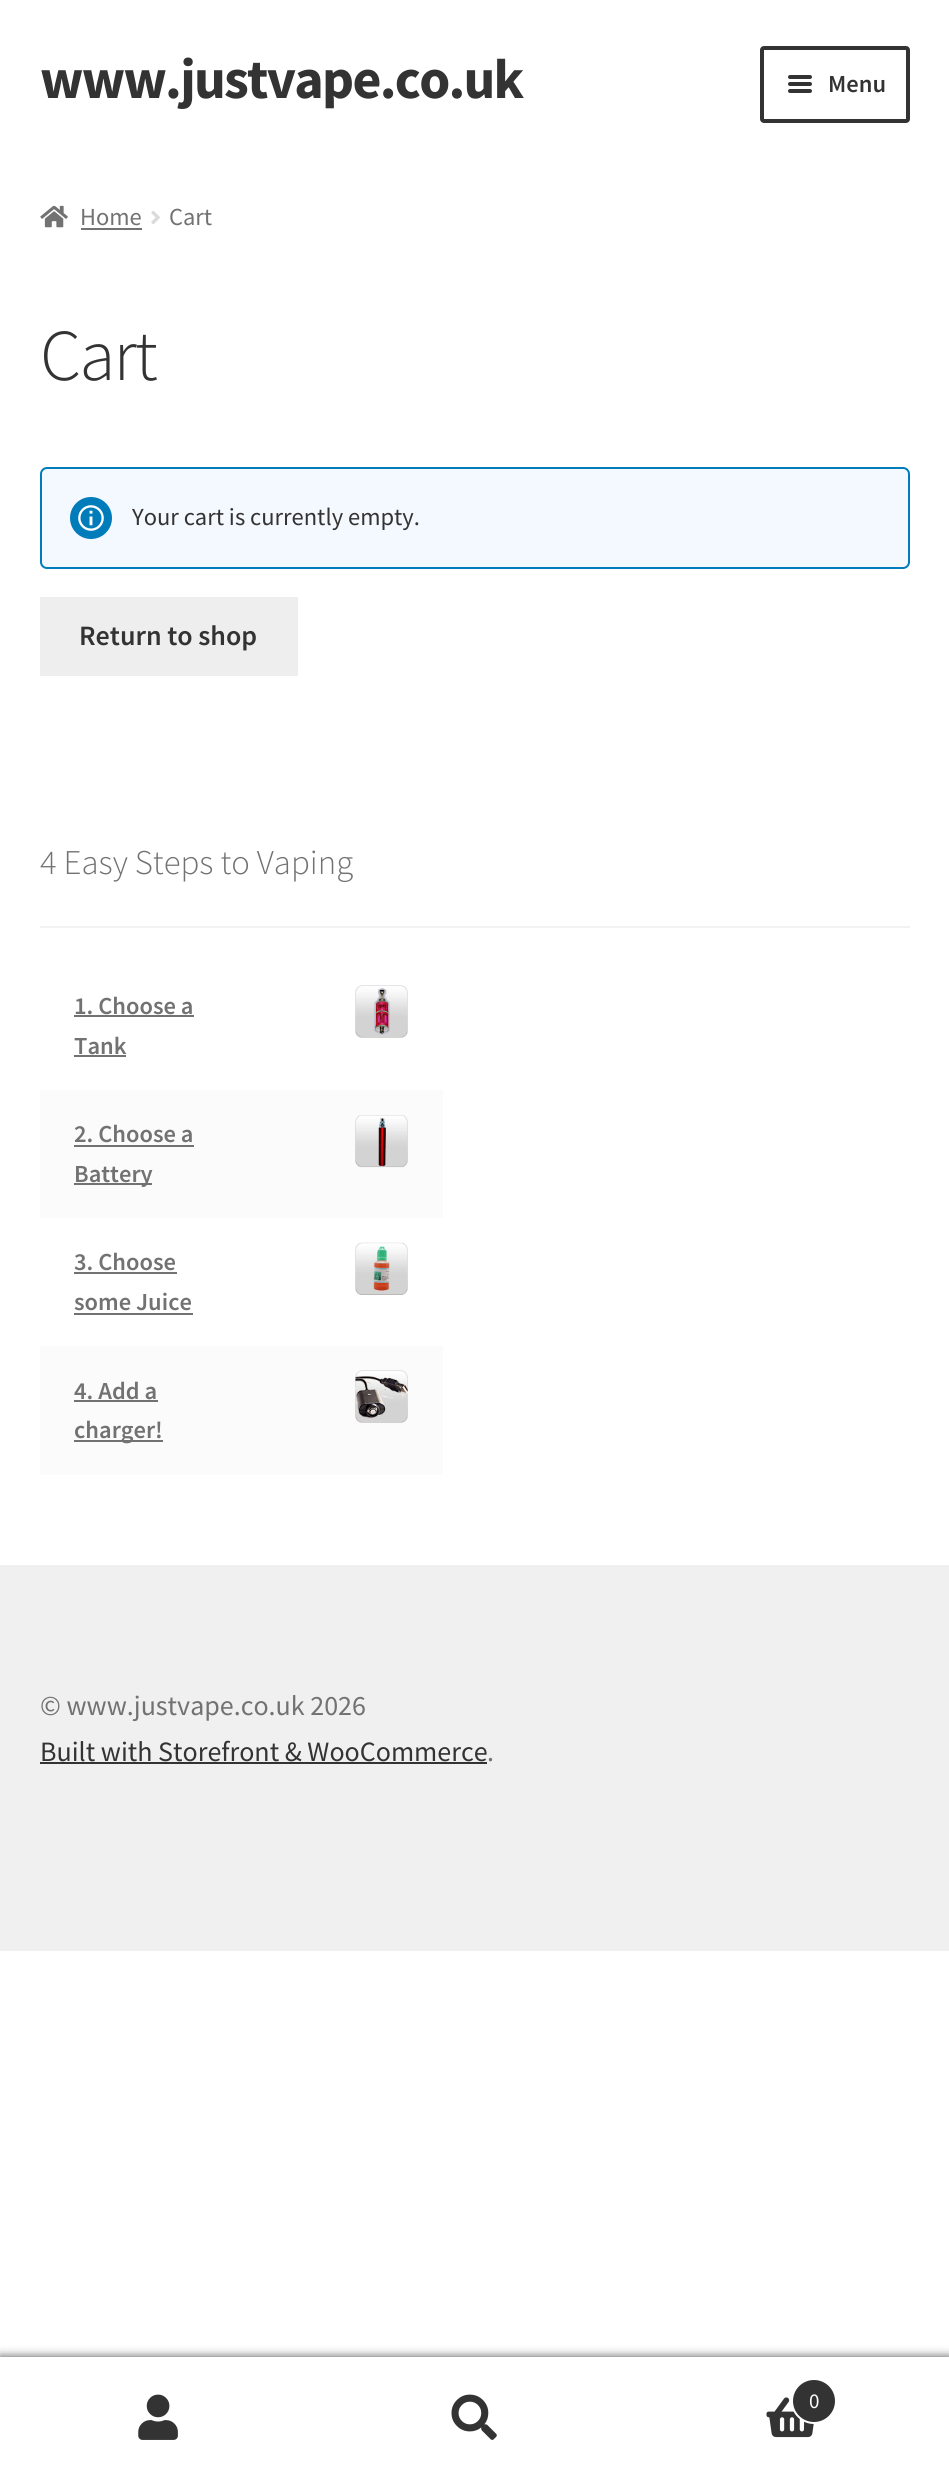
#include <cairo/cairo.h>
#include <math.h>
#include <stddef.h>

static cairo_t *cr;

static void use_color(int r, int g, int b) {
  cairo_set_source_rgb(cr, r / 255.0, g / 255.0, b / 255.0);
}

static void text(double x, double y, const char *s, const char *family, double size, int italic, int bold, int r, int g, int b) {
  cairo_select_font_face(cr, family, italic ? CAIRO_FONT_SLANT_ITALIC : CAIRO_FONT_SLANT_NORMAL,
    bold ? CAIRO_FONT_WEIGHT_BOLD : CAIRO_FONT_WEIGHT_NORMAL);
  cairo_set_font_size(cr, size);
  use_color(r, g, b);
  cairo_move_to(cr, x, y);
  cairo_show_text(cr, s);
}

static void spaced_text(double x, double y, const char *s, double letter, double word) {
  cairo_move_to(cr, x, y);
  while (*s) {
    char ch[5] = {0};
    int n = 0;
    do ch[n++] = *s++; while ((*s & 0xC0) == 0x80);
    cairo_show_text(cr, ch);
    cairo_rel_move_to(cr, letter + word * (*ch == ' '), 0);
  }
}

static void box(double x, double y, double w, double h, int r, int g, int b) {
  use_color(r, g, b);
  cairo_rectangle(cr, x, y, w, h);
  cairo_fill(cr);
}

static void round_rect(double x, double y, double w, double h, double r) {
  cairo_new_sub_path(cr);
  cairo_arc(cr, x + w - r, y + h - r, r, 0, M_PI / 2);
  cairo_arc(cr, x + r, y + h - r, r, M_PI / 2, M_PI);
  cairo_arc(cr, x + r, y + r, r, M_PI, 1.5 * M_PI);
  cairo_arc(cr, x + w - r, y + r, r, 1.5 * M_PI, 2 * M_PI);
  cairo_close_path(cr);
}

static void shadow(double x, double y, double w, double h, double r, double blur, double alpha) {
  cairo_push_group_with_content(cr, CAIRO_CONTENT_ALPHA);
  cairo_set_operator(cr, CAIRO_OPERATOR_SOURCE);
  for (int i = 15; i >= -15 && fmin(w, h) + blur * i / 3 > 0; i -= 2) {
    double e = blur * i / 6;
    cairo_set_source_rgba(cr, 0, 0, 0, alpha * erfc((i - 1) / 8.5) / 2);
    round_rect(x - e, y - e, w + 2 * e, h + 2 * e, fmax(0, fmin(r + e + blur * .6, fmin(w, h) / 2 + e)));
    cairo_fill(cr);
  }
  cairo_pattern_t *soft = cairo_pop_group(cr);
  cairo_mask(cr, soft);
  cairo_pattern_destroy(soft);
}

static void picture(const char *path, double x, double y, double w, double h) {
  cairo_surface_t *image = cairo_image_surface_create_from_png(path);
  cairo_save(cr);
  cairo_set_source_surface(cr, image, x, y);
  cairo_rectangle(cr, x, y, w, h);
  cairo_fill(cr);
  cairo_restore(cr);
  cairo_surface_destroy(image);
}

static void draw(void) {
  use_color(255, 255, 255);
  cairo_paint(cr);
  round_rect(762, 48, 146, 73, 2);
  use_color(51, 51, 51);
  cairo_set_line_width(cr, 4);
  cairo_stroke(cr);
  round_rect(788, 75, 24, 4, 2);
  cairo_fill(cr);
  round_rect(788, 82, 24, 4, 2);
  cairo_fill(cr);
  round_rect(788, 89, 24, 4, 2);
  cairo_fill(cr);
  picture("img_01.png", 40, 205, 28, 23);
  box(81, 228, 61, 2, 114, 114, 114);
  picture("img_02.png", 151, 210, 9, 15);
  use_color(244, 248, 255);
  round_rect(41, 468, 868, 100, 6);
  cairo_fill_preserve(cr);
  use_color(0, 124, 186);
  cairo_set_line_width(cr, 2);
  cairo_stroke(cr);
  cairo_arc(cr, 91, 518, 21, 0, 2 * M_PI);
  cairo_fill(cr);
  picture("img_03.png", 78, 505, 26, 26);
  box(40, 597, 258, 79, 238, 238, 238);
  box(40, 926, 870, 2, 242, 242, 242);
  box(74, 1015, 120, 2, 114, 114, 114);
  box(74, 1055, 52, 2, 114, 114, 114);
  picture("img_04.png", 355, 985, 53, 53);
  box(40, 1090, 403, 128, 251, 251, 251);
  box(74, 1145, 120, 2, 114, 114, 114);
  box(74, 1183, 78, 2, 114, 114, 114);
  picture("img_05.png", 355, 1115, 53, 53);
  box(74, 1272, 103, 2, 114, 114, 114);
  box(74, 1313, 119, 2, 114, 114, 114);
  picture("img_06.png", 355, 1242, 53, 53);
  box(40, 1346, 403, 129, 251, 251, 251);
  box(74, 1400, 84, 2, 114, 114, 114);
  box(74, 1440, 89, 2, 114, 114, 114);
  picture("img_07.png", 355, 1370, 53, 53);
  box(0, 1565, 949, 386, 240, 240, 240);
  box(40, 1762, 447, 2, 51, 51, 51);
  use_color(0, 0, 0);
  shadow(0, 2357, 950, 121, 0, 5, 0.7);
  box(0, 2357, 949, 2, 255, 255, 255);
  box(0, 2359, 949, 119, 255, 255, 255);
  picture("img_08.png", 138, 2394, 40, 46);
  picture("img_09.png", 451, 2394, 46, 46);
  picture("img_10.png", 766, 2397, 48, 41);
  use_color(51, 51, 51);
  cairo_arc(cr, 814, 2401, 22, 0, 2 * M_PI);
  cairo_fill_preserve(cr);
  use_color(255, 255, 255);
  cairo_stroke(cr);
  cairo_select_font_face(cr, "Source Sans Pro", CAIRO_FONT_SLANT_NORMAL, CAIRO_FONT_WEIGHT_BOLD);
  cairo_set_font_size(cr, 56);
  use_color(51, 51, 51);
  spaced_text(40, 98, "www.justvape.co.uk", -1.75, 0);
  text(828, 92, "Menu", "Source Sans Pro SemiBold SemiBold", 24.5, 0, 0, 51, 51, 51);
  text(80, 225, "Home", "Source Sans Pro", 24.5, 0, 0, 114, 114, 114);
  text(169, 225, "Cart", "Source Sans Pro", 24.5, 0, 0, 114, 114, 114);
  cairo_select_font_face(cr, "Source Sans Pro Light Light", CAIRO_FONT_SLANT_NORMAL, CAIRO_FONT_WEIGHT_NORMAL);
  cairo_set_font_size(cr, 73);
  use_color(51, 51, 51);
  spaced_text(40, 380, "Cart", -1.75, 0);
  text(132, 525, "Your cart is currently empty.", "Source Sans Pro", 24.5, 0, 0, 51, 51, 51);
  text(79, 645, "Return to shop", "Source Sans Pro SemiBold SemiBold", 28, 0, 0, 51, 51, 51);
  text(40, 874, "4 Easy Steps to Vaping", "Source Sans Pro Light Light", 34.75, 0, 0, 114, 114, 114);
  text(74, 1014, "1. Choose a", "Source Sans Pro SemiBold SemiBold", 24.5, 0, 0, 114, 114, 114);
  text(74, 1054, "Tank", "Source Sans Pro SemiBold SemiBold", 24.5, 0, 0, 114, 114, 114);
  text(74, 1142, "2. Choose a", "Source Sans Pro SemiBold SemiBold", 24.5, 0, 0, 114, 114, 114);
  text(74, 1182, "Battery", "Source Sans Pro SemiBold SemiBold", 24.5, 0, 0, 114, 114, 114);
  text(74, 1270, "3. Choose", "Source Sans Pro SemiBold SemiBold", 24.5, 0, 0, 114, 114, 114);
  text(74, 1310, "some Juice", "Source Sans Pro SemiBold SemiBold", 24.5, 0, 0, 114, 114, 114);
  text(74, 1399, "4. Add a", "Source Sans Pro SemiBold SemiBold", 24.5, 0, 0, 114, 114, 114);
  text(74, 1438, "charger!", "Source Sans Pro SemiBold SemiBold", 24.5, 0, 0, 114, 114, 114);
  text(40, 1715, "© www.justvape.co.uk 2026", "Source Sans Pro", 28, 0, 0, 114, 114, 114);
  text(40, 1761, "Built with Storefront & WooCommerce", "Source Sans Pro", 28, 0, 0, 51, 51, 51);
  text(487, 1761, ".", "Source Sans Pro", 28, 0, 0, 114, 114, 114);
  text(809, 2408, "0", "Source Sans Pro", 21, 0, 0, 255, 255, 255);
}

int main(void) {
  cairo_surface_t *surface = cairo_image_surface_create(CAIRO_FORMAT_RGB24, 949, 2478);
  cr = cairo_create(surface);
  cairo_font_options_t *options = cairo_font_options_create();
  cairo_font_options_set_hint_metrics(options, CAIRO_HINT_METRICS_OFF);
  cairo_font_options_set_hint_style(options, CAIRO_HINT_STYLE_NONE);
  cairo_set_font_options(cr, options);
  cairo_set_miter_limit(cr, 4);
  draw();
  cairo_surface_write_to_png(surface, "out.png");
  cairo_font_options_destroy(options);
  cairo_destroy(cr);
  cairo_surface_destroy(surface);
  return 0;
}
